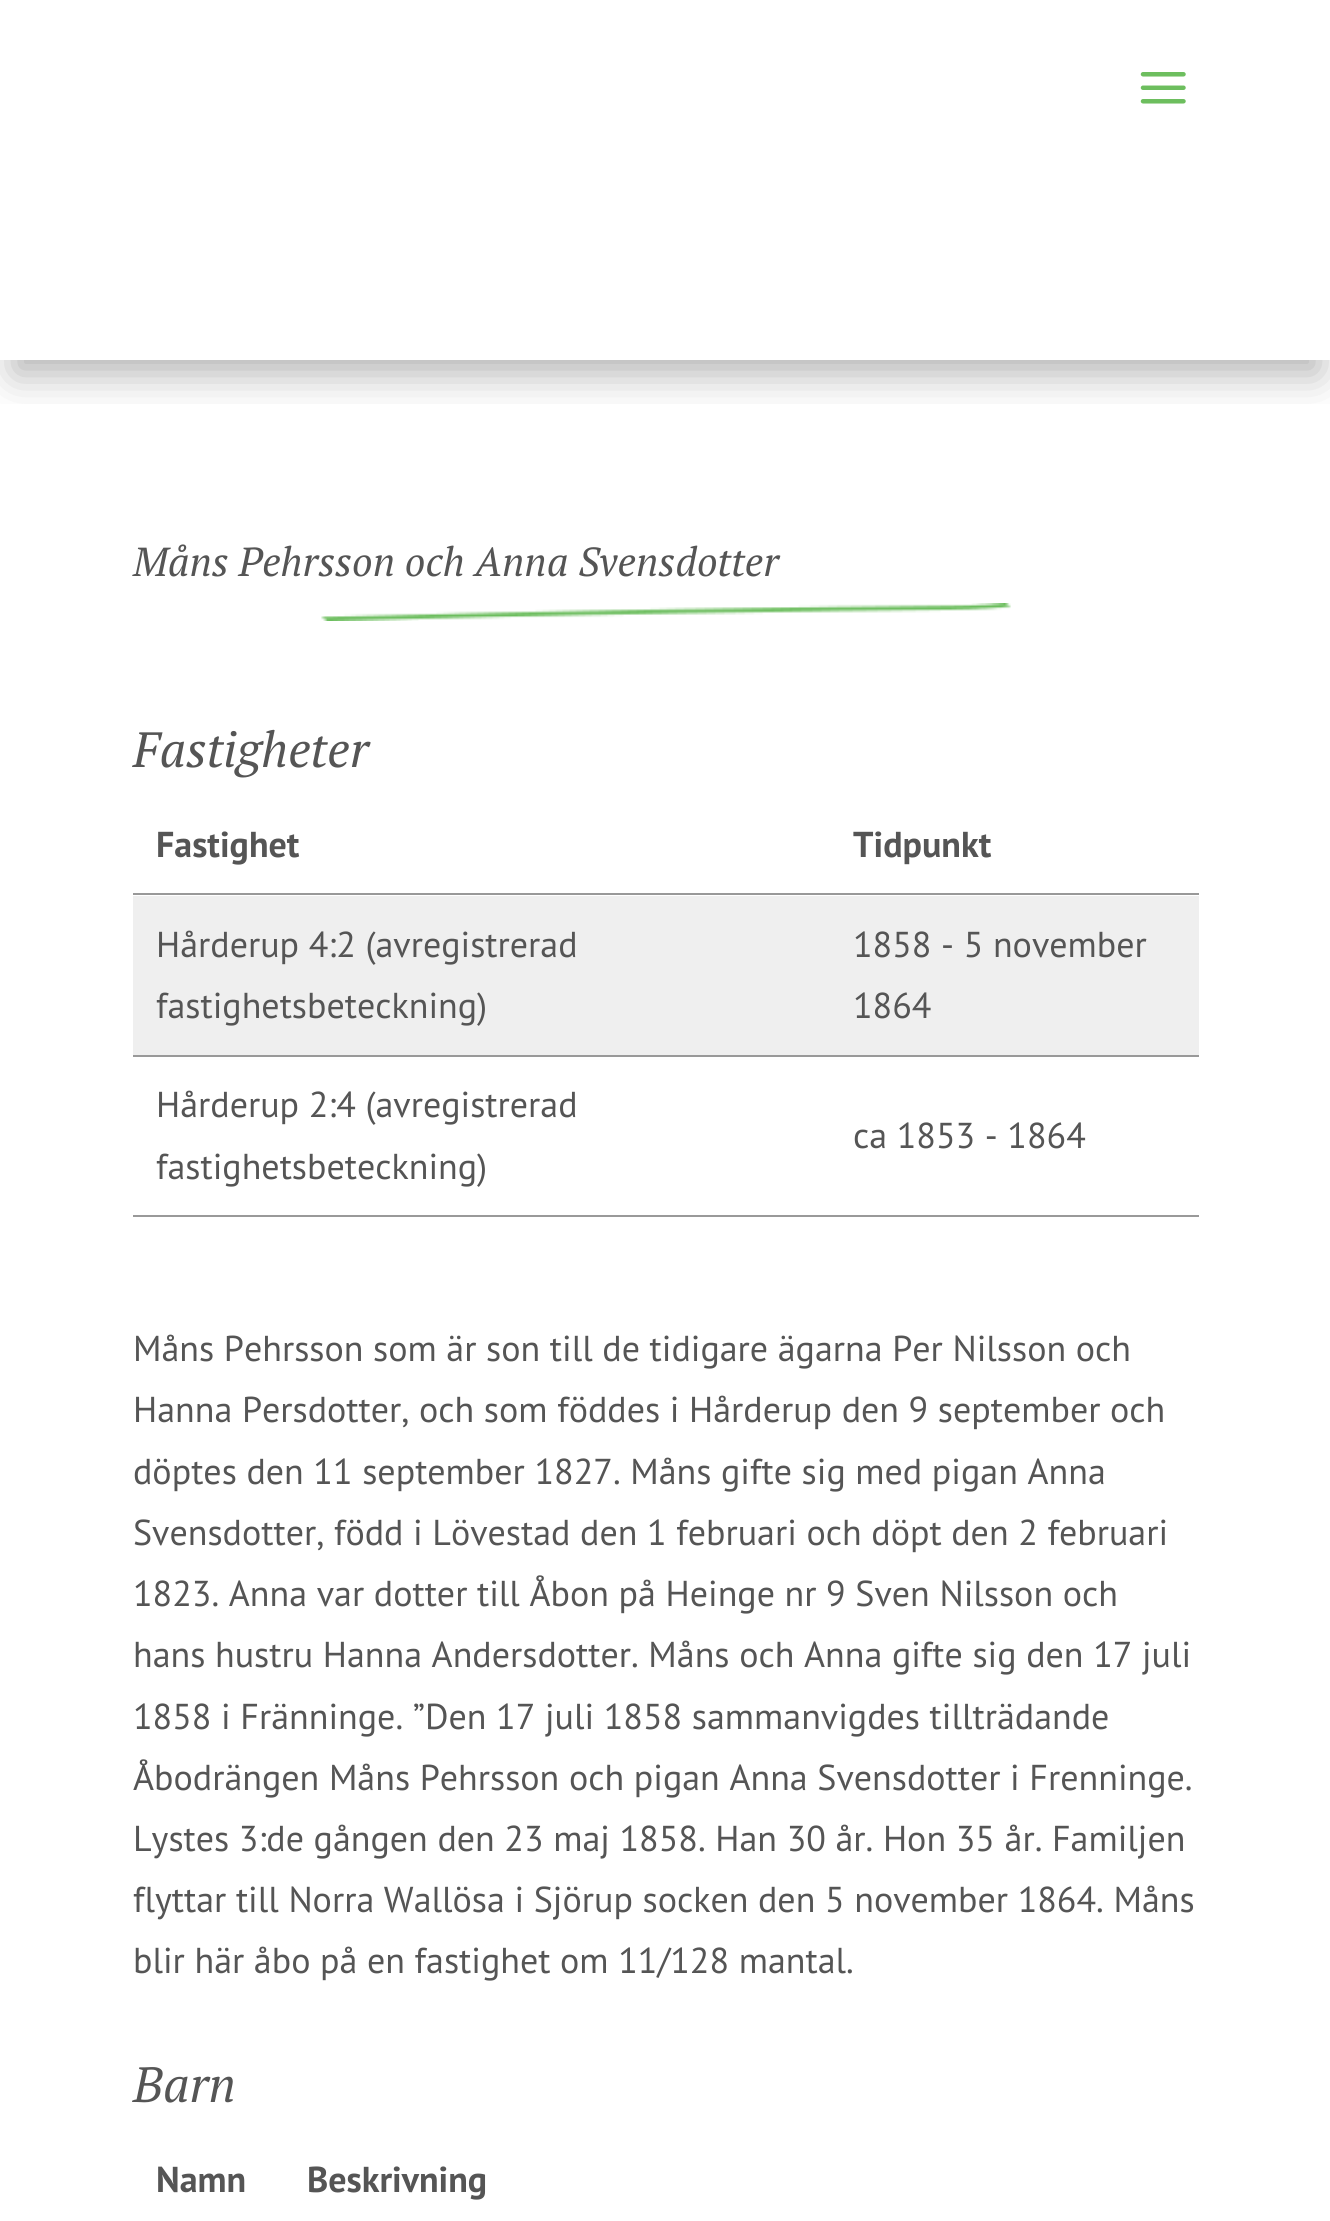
#include <cairo/cairo.h>
#include <math.h>
#include <stddef.h>

static cairo_t *cr;

static void use_color(int r, int g, int b) {
  cairo_set_source_rgb(cr, r / 255.0, g / 255.0, b / 255.0);
}

static void text(double x, double y, const char *s, const char *family, double size, int italic, int bold, int r, int g, int b) {
  cairo_select_font_face(cr, family, italic ? CAIRO_FONT_SLANT_ITALIC : CAIRO_FONT_SLANT_NORMAL,
    bold ? CAIRO_FONT_WEIGHT_BOLD : CAIRO_FONT_WEIGHT_NORMAL);
  cairo_set_font_size(cr, size);
  use_color(r, g, b);
  cairo_move_to(cr, x, y);
  cairo_show_text(cr, s);
}

static void box(double x, double y, double w, double h, int r, int g, int b) {
  use_color(r, g, b);
  cairo_rectangle(cr, x, y, w, h);
  cairo_fill(cr);
}

static void round_rect(double x, double y, double w, double h, double r) {
  cairo_new_sub_path(cr);
  cairo_arc(cr, x + w - r, y + h - r, r, 0, M_PI / 2);
  cairo_arc(cr, x + r, y + h - r, r, M_PI / 2, M_PI);
  cairo_arc(cr, x + r, y + r, r, M_PI, 1.5 * M_PI);
  cairo_arc(cr, x + w - r, y + r, r, 1.5 * M_PI, 2 * M_PI);
  cairo_close_path(cr);
}

static void shadow(double x, double y, double w, double h, double r, double blur, double alpha) {
  cairo_push_group_with_content(cr, CAIRO_CONTENT_ALPHA);
  cairo_set_operator(cr, CAIRO_OPERATOR_SOURCE);
  for (int i = 15; i >= -15 && fmin(w, h) + blur * i / 3 > 0; i -= 2) {
    double e = blur * i / 6;
    cairo_set_source_rgba(cr, 0, 0, 0, alpha * erfc((i - 1) / 8.5) / 2);
    round_rect(x - e, y - e, w + 2 * e, h + 2 * e, fmax(0, fmin(r + e + blur * .6, fmin(w, h) / 2 + e)));
    cairo_fill(cr);
  }
  cairo_pattern_t *soft = cairo_pop_group(cr);
  cairo_mask(cr, soft);
  cairo_pattern_destroy(soft);
}

static void picture(const char *path, double x, double y, double w, double h) {
  cairo_surface_t *image = cairo_image_surface_create_from_png(path);
  cairo_save(cr);
  cairo_set_source_surface(cr, image, x, y);
  cairo_rectangle(cr, x, y, w, h);
  cairo_fill(cr);
  cairo_restore(cr);
  cairo_surface_destroy(image);
}

static void draw(void) {
  use_color(255, 255, 255);
  cairo_paint(cr);
  cairo_save(cr);
  cairo_rectangle(cr, 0, 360, 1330, 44);
  cairo_clip(cr);
  use_color(0, 0, 0);
  shadow(14, 41, 1305, 333, 0, 20, 0.3);
  cairo_restore(cr);
  picture("img_01.png", 1140, 72, 46, 32);
  picture("img_02.png", 321, 603, 690, 18);
  box(133, 893, 1066, 2, 153, 153, 153);
  box(133, 1055, 1066, 2, 153, 153, 153);
  box(133, 896, 1066, 159, 239, 239, 239);
  box(133, 1215, 1066, 2, 153, 153, 153);
  text(133, 576, "Måns Pehrsson och Anna Svensdotter", "PT Serif", 40.5, 1, 0, 85, 85, 85);
  text(133, 767, "Fastigheter", "PT Serif", 49.5, 1, 0, 85, 85, 85);
  text(156, 857, "Fastighet", "PT Sans", 36, 0, 1, 85, 85, 85);
  text(853, 857, "Tidpunkt", "PT Sans", 36, 0, 1, 85, 85, 85);
  text(156, 957, "Hårderup 4:2 (avregistrerad", "PT Sans", 36, 0, 0, 85, 85, 85);
  text(156, 1018, "fastighetsbeteckning)", "PT Sans", 36, 0, 0, 85, 85, 85);
  text(853, 957, "1858 - 5 november", "PT Sans", 36, 0, 0, 85, 85, 85);
  text(853, 1018, "1864", "PT Sans", 36, 0, 0, 85, 85, 85);
  text(156, 1117, "Hårderup 2:4 (avregistrerad", "PT Sans", 36, 0, 0, 85, 85, 85);
  text(156, 1179, "fastighetsbeteckning)", "PT Sans", 36, 0, 0, 85, 85, 85);
  text(853, 1148, "ca 1853 - 1864", "PT Sans", 36, 0, 0, 85, 85, 85);
  text(133, 1361, "Måns Pehrsson som är son till de tidigare ägarna Per Nilsson och", "PT Sans", 36, 0, 0, 85, 85, 85);
  text(133, 1422, "Hanna Persdotter, och som föddes i Hårderup den 9 september och", "PT Sans", 36, 0, 0, 85, 85, 85);
  text(133, 1484, "döptes den 11 september 1827. Måns gifte sig med pigan Anna", "PT Sans", 36, 0, 0, 85, 85, 85);
  text(133, 1545, "Svensdotter, född i Lövestad den 1 februari och döpt den 2 februari", "PT Sans", 36, 0, 0, 85, 85, 85);
  text(133, 1606, "1823. Anna var dotter till Åbon på Heinge nr 9 Sven Nilsson och", "PT Sans", 36, 0, 0, 85, 85, 85);
  text(133, 1667, "hans hustru Hanna Andersdotter. Måns och Anna gifte sig den 17 juli", "PT Sans", 36, 0, 0, 85, 85, 85);
  text(133, 1729, "1858 i Fränninge. ”Den 17 juli 1858 sammanvigdes tillträdande", "PT Sans", 36, 0, 0, 85, 85, 85);
  text(133, 1790, "Åbodrängen Måns Pehrsson och pigan Anna Svensdotter i Frenninge.", "PT Sans", 36, 0, 0, 85, 85, 85);
  text(133, 1851, "Lystes 3:de gången den 23 maj 1858. Han 30 år. Hon 35 år. Familjen", "PT Sans", 36, 0, 0, 85, 85, 85);
  text(133, 1912, "flyttar till Norra Wallösa i Sjörup socken den 5 november 1864. Måns", "PT Sans", 36, 0, 0, 85, 85, 85);
  text(133, 1973, "blir här åbo på en fastighet om 11/128 mantal.", "PT Sans", 36, 0, 0, 85, 85, 85);
  text(133, 2102, "Barn", "PT Serif", 49.5, 1, 0, 85, 85, 85);
  text(156, 2192, "Namn", "PT Sans", 36, 0, 1, 85, 85, 85);
  text(307, 2192, "Beskrivning", "PT Sans", 36, 0, 1, 85, 85, 85);
}

int main(void) {
  cairo_surface_t *surface = cairo_image_surface_create(CAIRO_FORMAT_RGB24, 1330, 2221);
  cr = cairo_create(surface);
  cairo_font_options_t *options = cairo_font_options_create();
  cairo_font_options_set_hint_metrics(options, CAIRO_HINT_METRICS_OFF);
  cairo_font_options_set_hint_style(options, CAIRO_HINT_STYLE_NONE);
  cairo_set_font_options(cr, options);
  cairo_set_miter_limit(cr, 4);
  draw();
  cairo_surface_write_to_png(surface, "out.png");
  cairo_font_options_destroy(options);
  cairo_destroy(cr);
  cairo_surface_destroy(surface);
  return 0;
}
